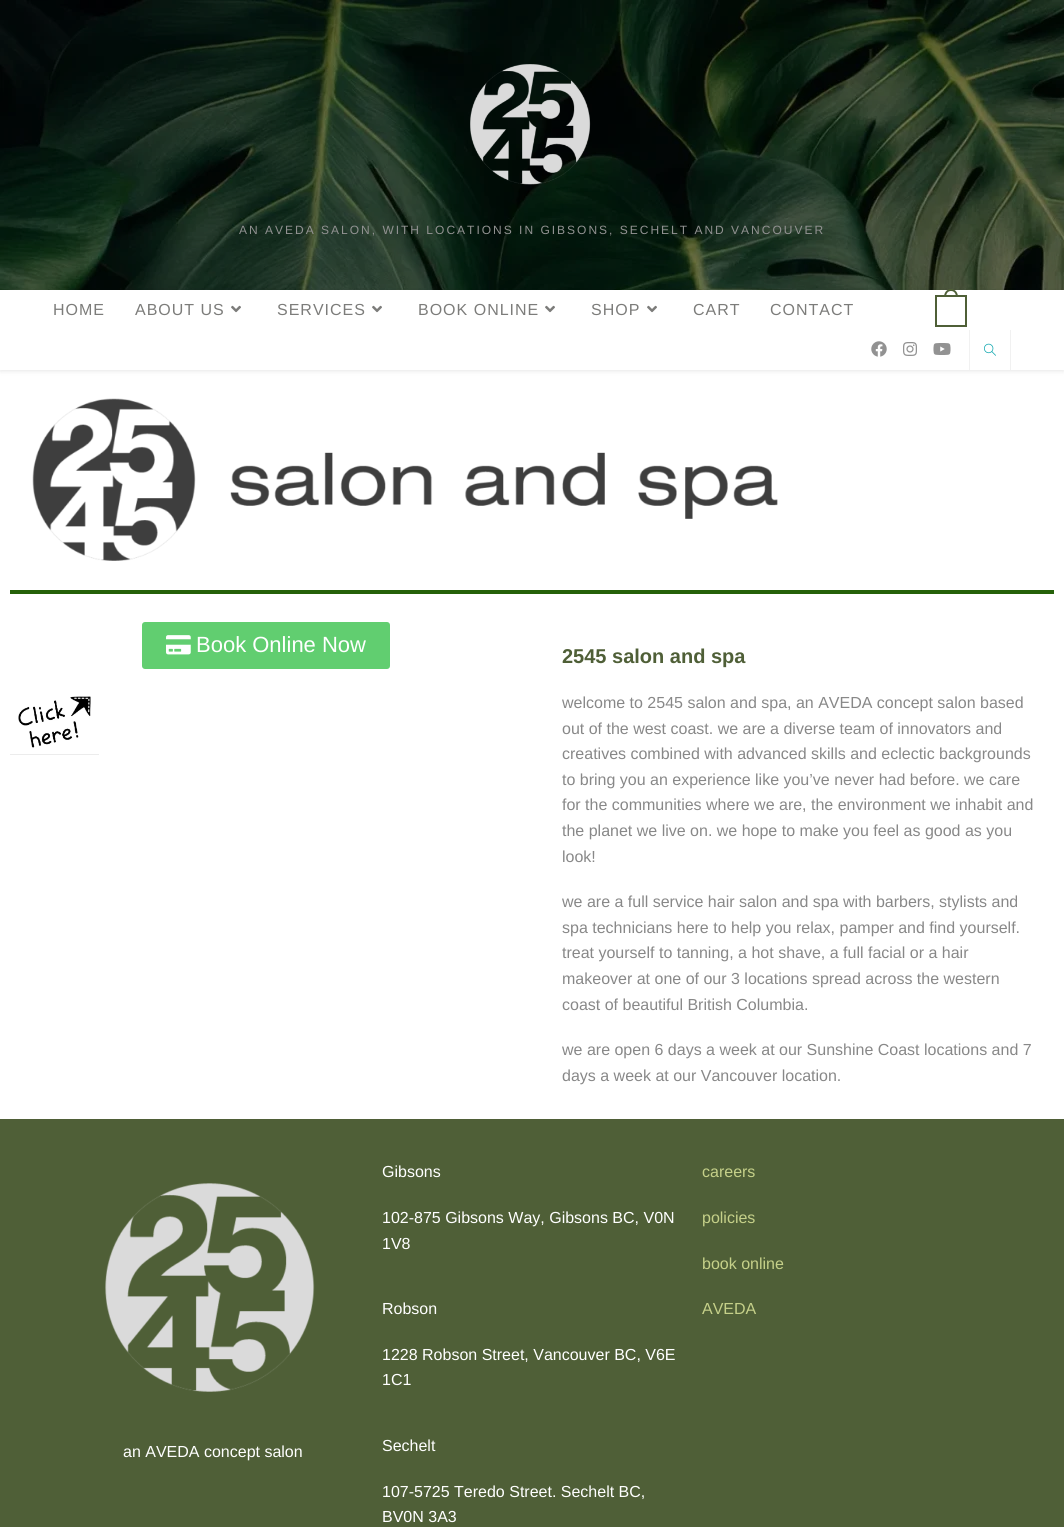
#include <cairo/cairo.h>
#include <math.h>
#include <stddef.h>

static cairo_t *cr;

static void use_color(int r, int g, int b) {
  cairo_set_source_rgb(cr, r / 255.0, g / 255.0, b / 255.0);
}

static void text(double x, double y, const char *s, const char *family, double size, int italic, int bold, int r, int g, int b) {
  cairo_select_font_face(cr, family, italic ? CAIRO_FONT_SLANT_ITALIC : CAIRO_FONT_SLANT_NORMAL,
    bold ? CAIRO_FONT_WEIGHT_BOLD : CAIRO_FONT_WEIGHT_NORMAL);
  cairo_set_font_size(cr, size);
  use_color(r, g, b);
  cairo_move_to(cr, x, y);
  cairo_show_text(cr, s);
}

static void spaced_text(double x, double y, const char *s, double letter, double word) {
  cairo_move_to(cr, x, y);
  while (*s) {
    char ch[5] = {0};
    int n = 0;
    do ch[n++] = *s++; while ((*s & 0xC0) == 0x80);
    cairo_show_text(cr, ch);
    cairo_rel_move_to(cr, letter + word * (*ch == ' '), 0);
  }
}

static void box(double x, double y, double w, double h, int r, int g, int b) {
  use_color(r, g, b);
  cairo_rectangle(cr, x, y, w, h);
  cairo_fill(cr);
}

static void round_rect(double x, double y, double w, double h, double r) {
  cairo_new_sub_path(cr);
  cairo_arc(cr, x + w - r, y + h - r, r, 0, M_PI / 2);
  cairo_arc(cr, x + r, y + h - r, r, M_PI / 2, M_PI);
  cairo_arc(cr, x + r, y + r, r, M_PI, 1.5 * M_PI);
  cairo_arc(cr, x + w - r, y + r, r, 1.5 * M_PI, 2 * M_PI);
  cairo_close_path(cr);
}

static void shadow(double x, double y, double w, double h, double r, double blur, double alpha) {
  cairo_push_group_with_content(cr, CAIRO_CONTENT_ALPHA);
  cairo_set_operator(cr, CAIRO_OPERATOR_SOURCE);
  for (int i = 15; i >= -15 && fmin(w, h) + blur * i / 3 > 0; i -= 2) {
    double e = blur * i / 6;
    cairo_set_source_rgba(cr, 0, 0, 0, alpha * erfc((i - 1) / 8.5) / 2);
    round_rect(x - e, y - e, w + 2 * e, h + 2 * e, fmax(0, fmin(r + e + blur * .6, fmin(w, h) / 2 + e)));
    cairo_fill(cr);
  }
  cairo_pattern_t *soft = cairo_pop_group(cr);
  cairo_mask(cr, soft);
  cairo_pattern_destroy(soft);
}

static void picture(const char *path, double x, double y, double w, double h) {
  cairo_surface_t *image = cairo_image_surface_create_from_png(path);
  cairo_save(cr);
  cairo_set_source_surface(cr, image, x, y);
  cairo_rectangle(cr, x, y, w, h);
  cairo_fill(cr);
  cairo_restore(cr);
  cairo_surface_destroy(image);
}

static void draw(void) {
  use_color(255, 255, 255);
  cairo_paint(cr);
  picture("img_01.png", 0, 0, 1064, 290);
  picture("img_02.png", 470, 64, 121, 121);
  use_color(0, 0, 0);
  shadow(0, 291, 1064, 80, 0, 2.5, 0.1);
  box(0, 290, 1064, 80, 255, 255, 255);
  picture("img_03.png", 231, 305, 10, 8);
  picture("img_03.png", 372, 305, 10, 8);
  picture("img_03.png", 545, 305, 10, 8);
  picture("img_03.png", 647, 305, 10, 8);
  cairo_rectangle(cr, 936, 296, 30, 30);
  use_color(79, 95, 55);
  cairo_stroke(cr);
  cairo_set_fill_rule(cr, CAIRO_FILL_RULE_EVEN_ODD);
  cairo_new_path(cr);
  cairo_move_to(cr, 951, 289);
  cairo_curve_to(cr, 955.5, 289, 958, 293, 958, 297);
  cairo_line_to(cr, 944, 297);
  cairo_curve_to(cr, 944, 293, 946.5, 289, 951, 289);
  cairo_close_path(cr);
  cairo_move_to(cr, 951, 291);
  cairo_curve_to(cr, 954.5, 291, 956, 294, 956, 297);
  cairo_line_to(cr, 946, 297);
  cairo_curve_to(cr, 946, 294, 947.5, 291, 951, 291);
  cairo_close_path(cr);
  cairo_fill(cr);
  picture("img_04.png", 871, 341, 16, 16);
  picture("img_05.png", 903, 342, 14, 14);
  picture("img_06.png", 933, 343, 18, 12);
  box(1010, 330, 1, 40, 241, 241, 241);
  box(969, 330, 1, 40, 241, 241, 241);
  picture("img_07.png", 984, 343, 12, 13);
  picture("img_08.png", 32, 398, 746, 163);
  box(10, 590, 1044, 4, 37, 97, 9);
  use_color(97, 206, 112);
  round_rect(142, 622, 248, 47, 3);
  cairo_fill(cr);
  picture("img_09.png", 166, 635, 25, 20);
  picture("img_10.png", 10, 696, 89, 59);
  box(0, 1119, 1064, 408, 79, 95, 55);
  picture("img_11.png", 105, 1183, 210, 209);
  cairo_select_font_face(cr, "Liberation Sans", CAIRO_FONT_SLANT_NORMAL, CAIRO_FONT_WEIGHT_NORMAL);
  cairo_set_font_size(cr, 12);
  use_color(146, 146, 146);
  spaced_text(239, 234, "AN AVEDA SALON, WITH LOCATIONS IN GIBSONS, SECHELT AND VANCOUVER", 2, 0);
  cairo_set_font_size(cr, 16);
  use_color(124, 124, 122);
  spaced_text(53, 315, "HOME", 1, 0);
  spaced_text(135, 315, "ABOUT US", 1, 0);
  spaced_text(277, 315, "SERVICES", 1, 0);
  spaced_text(418, 315, "BOOK ONLINE", 1, 0);
  spaced_text(591, 315, "SHOP", 1, 0);
  spaced_text(693, 315, "CART", 1, 0);
  spaced_text(770, 315, "CONTACT", 1, 0);
  text(196, 652, "Book Online Now", "Liberation Sans", 22, 0, 0, 255, 255, 255);
  text(562, 663, "2545 salon and spa", "Liberation Sans", 20, 0, 1, 79, 95, 55);
  text(562, 708, "welcome to 2545 salon and spa, an AVEDA concept salon based", "Liberation Sans", 16, 0, 0, 136, 136, 136);
  text(562, 734, "out of the west coast. we are a diverse team of innovators and", "Liberation Sans", 16, 0, 0, 136, 136, 136);
  text(562, 759, "creatives combined with advanced skills and eclectic backgrounds", "Liberation Sans", 16, 0, 0, 136, 136, 136);
  text(562, 785, "to bring you an experience like you’ve never had before. we care", "Liberation Sans", 16, 0, 0, 136, 136, 136);
  text(562, 810, "for the communities where we are, the environment we inhabit and", "Liberation Sans", 16, 0, 0, 136, 136, 136);
  text(562, 836, "the planet we live on. we hope to make you feel as good as you", "Liberation Sans", 16, 0, 0, 136, 136, 136);
  text(562, 862, "look!", "Liberation Sans", 16, 0, 0, 136, 136, 136);
  text(562, 907, "we are a full service hair salon and spa with barbers, stylists and", "Liberation Sans", 16, 0, 0, 136, 136, 136);
  text(562, 933, "spa technicians here to help you relax, pamper and find yourself.", "Liberation Sans", 16, 0, 0, 136, 136, 136);
  text(562, 958, "treat yourself to tanning, a hot shave, a full facial or a hair", "Liberation Sans", 16, 0, 0, 136, 136, 136);
  text(562, 984, "makeover at one of our 3 locations spread across the western", "Liberation Sans", 16, 0, 0, 136, 136, 136);
  text(562, 1010, "coast of beautiful British Columbia.", "Liberation Sans", 16, 0, 0, 136, 136, 136);
  text(562, 1055, "we are open 6 days a week at our Sunshine Coast locations and 7", "Liberation Sans", 16, 0, 0, 136, 136, 136);
  text(562, 1081, "days a week at our Vancouver location.", "Liberation Sans", 16, 0, 0, 136, 136, 136);
  text(382, 1177, "Gibsons", "Liberation Sans", 16, 0, 0, 255, 255, 255);
  text(382, 1223, "102-875 Gibsons Way, Gibsons BC, V0N", "Liberation Sans", 16, 0, 0, 255, 255, 255);
  text(382, 1249, "1V8", "Liberation Sans", 16, 0, 0, 255, 255, 255);
  text(382, 1314, "Robson", "Liberation Sans", 16, 0, 0, 255, 255, 255);
  text(382, 1360, "1228 Robson Street, Vancouver BC, V6E", "Liberation Sans", 16, 0, 0, 255, 255, 255);
  text(382, 1385, "1C1", "Liberation Sans", 16, 0, 0, 255, 255, 255);
  text(382, 1451, "Sechelt", "Liberation Sans", 16, 0, 0, 255, 255, 255);
  text(382, 1497, "107-5725 Teredo Street. Sechelt BC,", "Liberation Sans", 16, 0, 0, 255, 255, 255);
  text(382, 1522, "BV0N 3A3", "Liberation Sans", 16, 0, 0, 255, 255, 255);
  text(702, 1177, "careers", "Liberation Sans", 16, 0, 0, 197, 208, 137);
  text(702, 1223, "policies", "Liberation Sans", 16, 0, 0, 197, 208, 137);
  text(702, 1269, "book online", "Liberation Sans", 16, 0, 0, 197, 208, 137);
  text(702, 1314, "AVEDA", "Liberation Sans", 16, 0, 0, 197, 208, 137);
  text(123, 1457, "an AVEDA concept salon", "Liberation Sans", 16, 0, 0, 255, 255, 255);
}

int main(void) {
  cairo_surface_t *surface = cairo_image_surface_create(CAIRO_FORMAT_RGB24, 1064, 1527);
  cr = cairo_create(surface);
  cairo_font_options_t *options = cairo_font_options_create();
  cairo_font_options_set_hint_metrics(options, CAIRO_HINT_METRICS_OFF);
  cairo_font_options_set_hint_style(options, CAIRO_HINT_STYLE_NONE);
  cairo_set_font_options(cr, options);
  cairo_set_miter_limit(cr, 4);
  draw();
  cairo_surface_write_to_png(surface, "out.png");
  cairo_font_options_destroy(options);
  cairo_destroy(cr);
  cairo_surface_destroy(surface);
  return 0;
}
